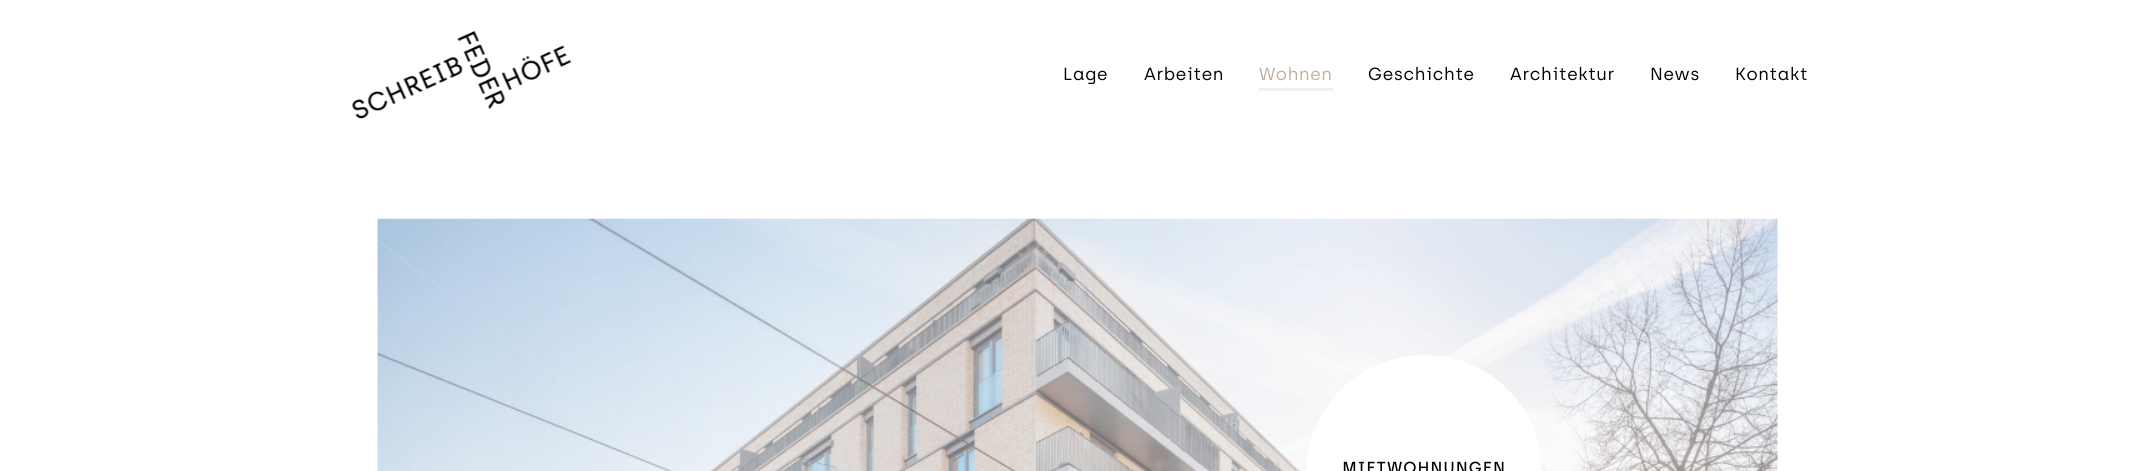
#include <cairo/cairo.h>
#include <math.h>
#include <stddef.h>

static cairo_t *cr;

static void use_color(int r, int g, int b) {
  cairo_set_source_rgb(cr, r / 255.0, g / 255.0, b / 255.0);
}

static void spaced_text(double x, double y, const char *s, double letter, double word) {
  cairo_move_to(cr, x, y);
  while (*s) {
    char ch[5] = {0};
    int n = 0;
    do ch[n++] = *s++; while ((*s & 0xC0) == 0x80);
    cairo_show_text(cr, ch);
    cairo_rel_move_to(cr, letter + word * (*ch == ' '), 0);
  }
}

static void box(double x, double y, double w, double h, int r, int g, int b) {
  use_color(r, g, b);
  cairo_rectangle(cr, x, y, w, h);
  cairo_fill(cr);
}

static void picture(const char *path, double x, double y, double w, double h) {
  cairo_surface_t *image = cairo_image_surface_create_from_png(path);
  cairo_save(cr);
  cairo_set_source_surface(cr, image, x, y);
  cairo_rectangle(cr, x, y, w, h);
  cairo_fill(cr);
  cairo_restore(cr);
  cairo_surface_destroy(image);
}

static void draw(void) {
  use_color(255, 255, 255);
  cairo_paint(cr);
  box(315, 149, 1525, 1, 252, 251, 250);
  picture("img_01.png", 352, 31, 220, 88);
  box(1259, 88, 74, 3, 238, 241, 246);
  picture("img_02.png", 377, 218, 1401, 253);
  picture("img_03.png", 1307, 355, 234, 116);
  cairo_select_font_face(cr, "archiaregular", CAIRO_FONT_SLANT_NORMAL, CAIRO_FONT_WEIGHT_NORMAL);
  cairo_set_font_size(cr, 17.5);
  use_color(0, 0, 0);
  spaced_text(1063, 80, "Lage", 0.6, 0);
  spaced_text(1144, 80, "Arbeiten", 0.6, 0);
  use_color(192, 174, 158);
  spaced_text(1259, 80, "Wohnen", 0.6, 0);
  use_color(0, 0, 0);
  spaced_text(1368, 80, "Geschichte", 0.6, 0);
  spaced_text(1510, 80, "Architektur", 0.6, 0);
  spaced_text(1650, 80, "News", 0.6, 0);
  spaced_text(1735, 80, "Kontakt", 0.6, 0);
}

int main(void) {
  cairo_surface_t *surface = cairo_image_surface_create(CAIRO_FORMAT_RGB24, 2153, 471);
  cr = cairo_create(surface);
  cairo_font_options_t *options = cairo_font_options_create();
  cairo_font_options_set_hint_metrics(options, CAIRO_HINT_METRICS_OFF);
  cairo_font_options_set_hint_style(options, CAIRO_HINT_STYLE_NONE);
  cairo_set_font_options(cr, options);
  cairo_set_miter_limit(cr, 4);
  draw();
  cairo_surface_write_to_png(surface, "out.png");
  cairo_font_options_destroy(options);
  cairo_destroy(cr);
  cairo_surface_destroy(surface);
  return 0;
}
